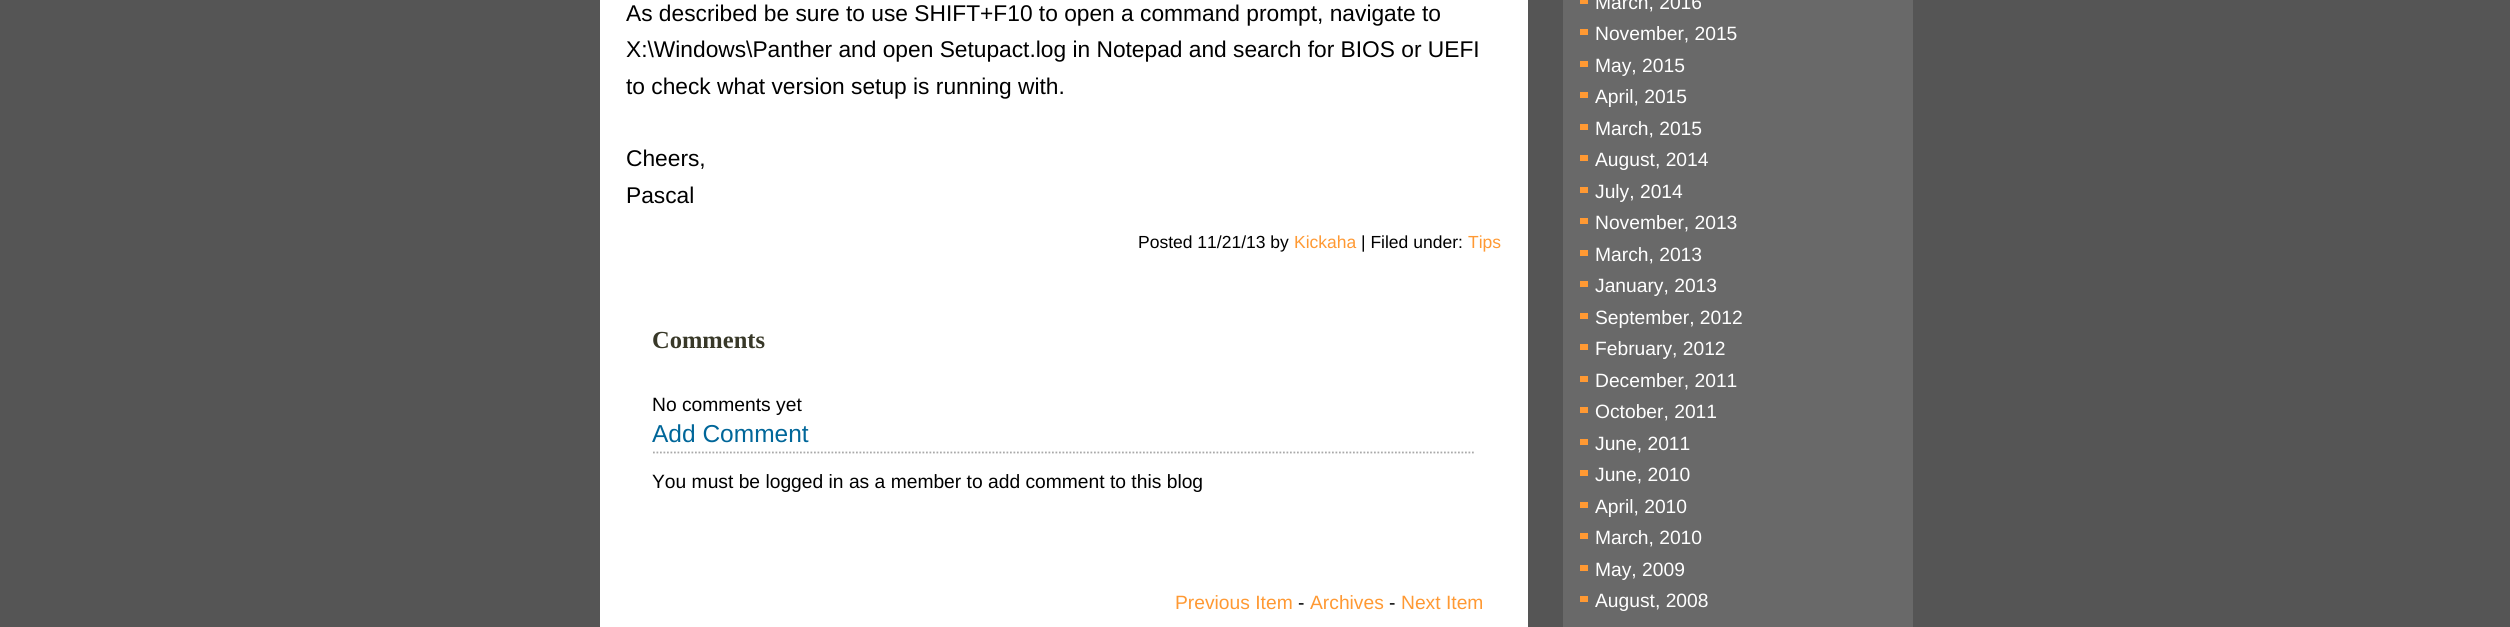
#include <cairo/cairo.h>
#include <math.h>
#include <stddef.h>

static cairo_t *cr;

static void use_color(int r, int g, int b) {
  cairo_set_source_rgb(cr, r / 255.0, g / 255.0, b / 255.0);
}

static void text(double x, double y, const char *s, const char *family, double size, int italic, int bold, int r, int g, int b) {
  cairo_select_font_face(cr, family, italic ? CAIRO_FONT_SLANT_ITALIC : CAIRO_FONT_SLANT_NORMAL,
    bold ? CAIRO_FONT_WEIGHT_BOLD : CAIRO_FONT_WEIGHT_NORMAL);
  cairo_set_font_size(cr, size);
  use_color(r, g, b);
  cairo_move_to(cr, x, y);
  cairo_show_text(cr, s);
}

static void box(double x, double y, double w, double h, int r, int g, int b) {
  use_color(r, g, b);
  cairo_rectangle(cr, x, y, w, h);
  cairo_fill(cr);
}

static void draw(void) {
  use_color(85, 85, 85);
  cairo_paint(cr);
  box(600, 0, 928, 627, 255, 255, 255);
  cairo_new_path(cr);
  cairo_move_to(cr, 653, 452.5);
  cairo_line_to(cr, 1475, 452.5);
  use_color(169, 169, 169);
  cairo_set_line_width(cr, 1.8);
  cairo_set_dash(cr, (double[]){1.75, 1.75}, 2, 0);
  cairo_stroke(cr);
  box(1563, 0, 350, 627, 105, 105, 105);
  box(1580, 0, 8, 4, 255, 153, 51);
  box(1580, 29, 8, 6, 255, 153, 51);
  box(1580, 61, 8, 6, 255, 153, 51);
  box(1580, 92, 8, 6, 255, 153, 51);
  box(1580, 124, 8, 6, 255, 153, 51);
  box(1580, 155, 8, 6, 255, 153, 51);
  box(1580, 187, 8, 6, 255, 153, 51);
  box(1580, 218, 8, 6, 255, 153, 51);
  box(1580, 250, 8, 6, 255, 153, 51);
  box(1580, 281, 8, 6, 255, 153, 51);
  box(1580, 313, 8, 6, 255, 153, 51);
  box(1580, 344, 8, 6, 255, 153, 51);
  box(1580, 376, 8, 6, 255, 153, 51);
  box(1580, 407, 8, 6, 255, 153, 51);
  box(1580, 439, 8, 6, 255, 153, 51);
  box(1580, 470, 8, 6, 255, 153, 51);
  box(1580, 502, 8, 6, 255, 153, 51);
  box(1580, 533, 8, 6, 255, 153, 51);
  box(1580, 565, 8, 6, 255, 153, 51);
  box(1580, 596, 8, 6, 255, 153, 51);
  text(626, 21, "As described be sure to use SHIFT+F10 to open a command prompt, navigate to", "Liberation Sans", 22.75, 0, 0, 0, 0, 0);
  text(626, 57, "X:\\Windows\\Panther and open Setupact.log in Notepad and search for BIOS or UEFI", "Liberation Sans", 22.75, 0, 0, 0, 0, 0);
  text(626, 94, "to check what version setup is running with.", "Liberation Sans", 22.75, 0, 0, 0, 0, 0);
  text(626, 166, "Cheers,", "Liberation Sans", 22.75, 0, 0, 0, 0, 0);
  text(626, 203, "Pascal", "Liberation Sans", 22.75, 0, 0, 0, 0, 0);
  text(1138, 248, "Posted 11/21/13 by", "Liberation Sans", 17.5, 0, 0, 0, 0, 0);
  text(1294, 248, "Kickaha", "Liberation Sans", 17.5, 0, 0, 255, 153, 51);
  text(1361, 248, "| Filed under:", "Liberation Sans", 17.5, 0, 0, 0, 0, 0);
  text(1468, 248, "Tips", "Liberation Sans", 17.5, 0, 0, 255, 153, 51);
  text(652, 348, "Comments", "Liberation Serif", 24.5, 0, 1, 56, 56, 40);
  text(652, 411, "No comments yet", "Liberation Sans", 19.25, 0, 0, 0, 0, 0);
  text(652, 442, "Add Comment", "Liberation Sans", 24.5, 0, 0, 0, 102, 153);
  text(652, 488, "You must be logged in as a member to add comment to this blog", "Liberation Sans", 19.25, 0, 0, 0, 0, 0);
  text(1175, 609, "Previous Item", "Liberation Sans", 19.25, 0, 0, 255, 153, 51);
  text(1298, 609, "-", "Liberation Sans", 19.25, 0, 0, 0, 0, 0);
  text(1310, 609, "Archives", "Liberation Sans", 19.25, 0, 0, 255, 153, 51);
  text(1389, 609, "-", "Liberation Sans", 19.25, 0, 0, 0, 0, 0);
  text(1401, 609, "Next Item", "Liberation Sans", 19.25, 0, 0, 255, 153, 51);
  text(1595, 9, "March, 2016", "Liberation Sans", 19.25, 0, 0, 255, 255, 255);
  text(1595, 40, "November, 2015", "Liberation Sans", 19.25, 0, 0, 255, 255, 255);
  text(1595, 72, "May, 2015", "Liberation Sans", 19.25, 0, 0, 255, 255, 255);
  text(1595, 103, "April, 2015", "Liberation Sans", 19.25, 0, 0, 255, 255, 255);
  text(1595, 135, "March, 2015", "Liberation Sans", 19.25, 0, 0, 255, 255, 255);
  text(1595, 166, "August, 2014", "Liberation Sans", 19.25, 0, 0, 255, 255, 255);
  text(1595, 198, "July, 2014", "Liberation Sans", 19.25, 0, 0, 255, 255, 255);
  text(1595, 229, "November, 2013", "Liberation Sans", 19.25, 0, 0, 255, 255, 255);
  text(1595, 261, "March, 2013", "Liberation Sans", 19.25, 0, 0, 255, 255, 255);
  text(1595, 292, "January, 2013", "Liberation Sans", 19.25, 0, 0, 255, 255, 255);
  text(1595, 324, "September, 2012", "Liberation Sans", 19.25, 0, 0, 255, 255, 255);
  text(1595, 355, "February, 2012", "Liberation Sans", 19.25, 0, 0, 255, 255, 255);
  text(1595, 387, "December, 2011", "Liberation Sans", 19.25, 0, 0, 255, 255, 255);
  text(1595, 418, "October, 2011", "Liberation Sans", 19.25, 0, 0, 255, 255, 255);
  text(1595, 450, "June, 2011", "Liberation Sans", 19.25, 0, 0, 255, 255, 255);
  text(1595, 481, "June, 2010", "Liberation Sans", 19.25, 0, 0, 255, 255, 255);
  text(1595, 513, "April, 2010", "Liberation Sans", 19.25, 0, 0, 255, 255, 255);
  text(1595, 544, "March, 2010", "Liberation Sans", 19.25, 0, 0, 255, 255, 255);
  text(1595, 576, "May, 2009", "Liberation Sans", 19.25, 0, 0, 255, 255, 255);
  text(1595, 607, "August, 2008", "Liberation Sans", 19.25, 0, 0, 255, 255, 255);
}

int main(void) {
  cairo_surface_t *surface = cairo_image_surface_create(CAIRO_FORMAT_RGB24, 2510, 627);
  cr = cairo_create(surface);
  cairo_font_options_t *options = cairo_font_options_create();
  cairo_font_options_set_hint_metrics(options, CAIRO_HINT_METRICS_OFF);
  cairo_font_options_set_hint_style(options, CAIRO_HINT_STYLE_NONE);
  cairo_set_font_options(cr, options);
  cairo_set_miter_limit(cr, 4);
  draw();
  cairo_surface_write_to_png(surface, "out.png");
  cairo_font_options_destroy(options);
  cairo_destroy(cr);
  cairo_surface_destroy(surface);
  return 0;
}
